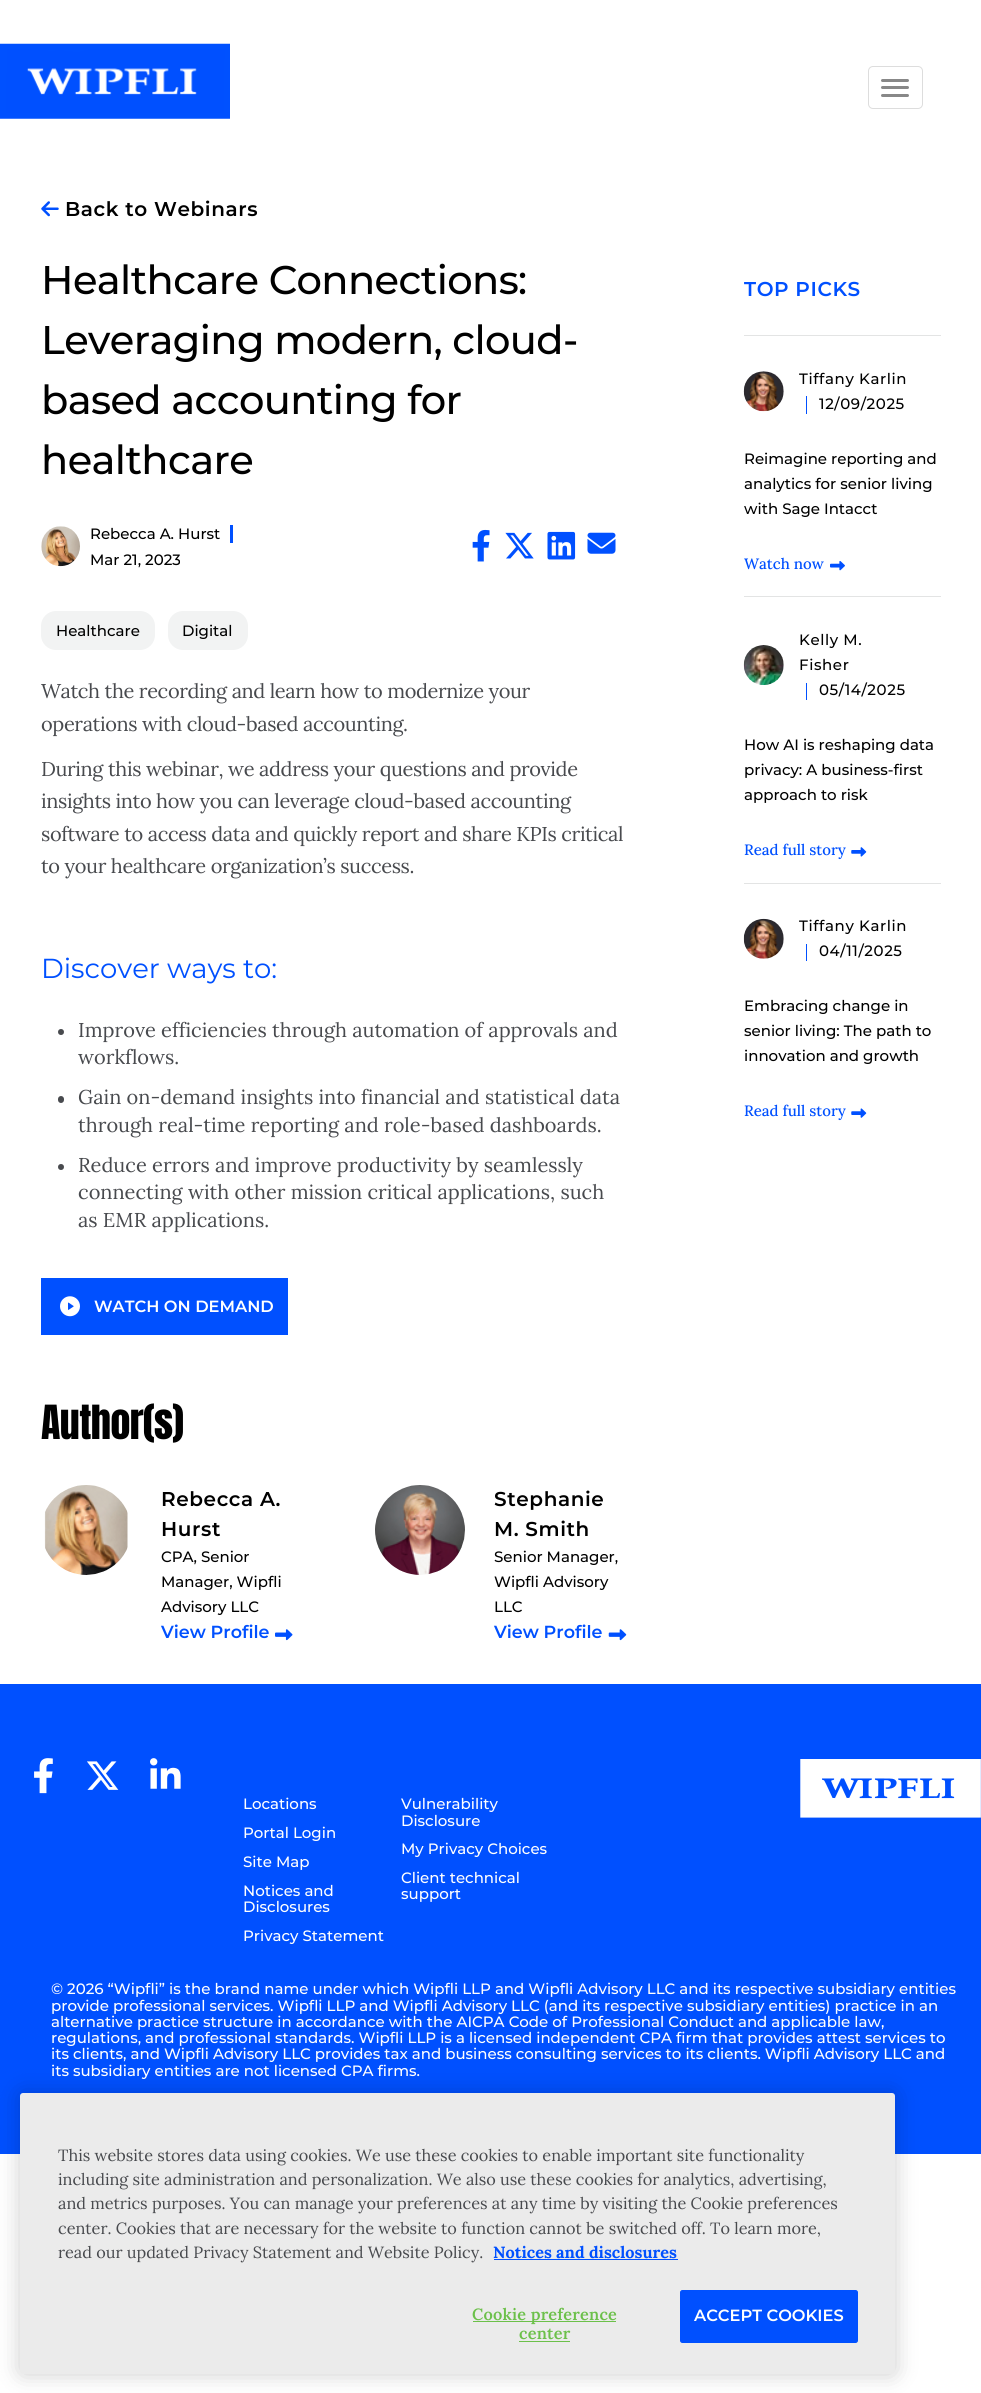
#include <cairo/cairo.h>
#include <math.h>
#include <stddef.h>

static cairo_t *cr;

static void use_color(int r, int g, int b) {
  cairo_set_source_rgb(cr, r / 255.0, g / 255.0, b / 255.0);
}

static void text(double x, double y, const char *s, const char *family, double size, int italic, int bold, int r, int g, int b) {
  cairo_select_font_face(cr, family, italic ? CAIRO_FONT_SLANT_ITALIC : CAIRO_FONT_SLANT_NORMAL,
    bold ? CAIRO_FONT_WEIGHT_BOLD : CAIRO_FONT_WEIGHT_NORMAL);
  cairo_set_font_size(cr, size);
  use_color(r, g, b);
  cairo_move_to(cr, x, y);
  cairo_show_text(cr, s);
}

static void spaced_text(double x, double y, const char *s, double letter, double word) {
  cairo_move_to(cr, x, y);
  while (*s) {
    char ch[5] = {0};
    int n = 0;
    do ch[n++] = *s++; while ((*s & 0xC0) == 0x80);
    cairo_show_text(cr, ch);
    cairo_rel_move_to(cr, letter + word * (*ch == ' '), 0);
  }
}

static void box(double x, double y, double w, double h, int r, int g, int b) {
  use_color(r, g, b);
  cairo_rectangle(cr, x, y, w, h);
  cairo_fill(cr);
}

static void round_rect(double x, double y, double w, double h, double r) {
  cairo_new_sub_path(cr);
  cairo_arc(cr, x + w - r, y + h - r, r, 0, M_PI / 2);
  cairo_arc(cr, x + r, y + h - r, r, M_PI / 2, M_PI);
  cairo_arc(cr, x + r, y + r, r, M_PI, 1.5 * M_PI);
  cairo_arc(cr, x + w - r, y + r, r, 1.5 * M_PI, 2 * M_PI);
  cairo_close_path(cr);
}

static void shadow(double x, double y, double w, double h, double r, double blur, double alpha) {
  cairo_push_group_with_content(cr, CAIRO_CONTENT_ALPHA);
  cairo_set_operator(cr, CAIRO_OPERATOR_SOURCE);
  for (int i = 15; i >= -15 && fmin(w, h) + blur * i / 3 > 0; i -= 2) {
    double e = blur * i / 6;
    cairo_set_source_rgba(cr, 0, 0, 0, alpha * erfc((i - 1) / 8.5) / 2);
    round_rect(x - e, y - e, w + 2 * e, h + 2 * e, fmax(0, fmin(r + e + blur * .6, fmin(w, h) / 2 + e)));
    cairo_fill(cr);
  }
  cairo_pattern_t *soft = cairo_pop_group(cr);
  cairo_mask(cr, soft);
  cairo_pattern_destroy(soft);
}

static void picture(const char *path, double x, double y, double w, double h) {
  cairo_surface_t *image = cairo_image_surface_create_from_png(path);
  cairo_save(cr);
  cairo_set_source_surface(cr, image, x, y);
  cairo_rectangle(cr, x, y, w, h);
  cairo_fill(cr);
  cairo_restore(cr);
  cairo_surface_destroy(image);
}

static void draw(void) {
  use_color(255, 255, 255);
  cairo_paint(cr);
  picture("img_01.png", 0, 43, 230, 76);
  round_rect(868.5, 66.5, 54, 42, 4.5);
  use_color(221, 221, 221);
  cairo_set_line_width(cr, 1);
  cairo_stroke(cr);
  use_color(136, 136, 136);
  round_rect(881, 79, 28, 3, 1.5);
  cairo_fill(cr);
  round_rect(881, 86, 28, 3, 1.5);
  cairo_fill(cr);
  round_rect(881, 94, 28, 3, 1.5);
  cairo_fill(cr);
  picture("img_02.png", 41, 201, 18, 16);
  picture("img_03.png", 41, 526, 39, 41);
  box(230, 525, 3, 18, 0, 80, 255);
  picture("img_04.png", 472, 529, 18, 33);
  picture("img_05.png", 505, 532, 29, 27);
  picture("img_06.png", 547, 531, 29, 29);
  picture("img_07.png", 587, 532, 29, 22);
  use_color(242, 243, 243);
  round_rect(41, 611, 114, 39, 15);
  cairo_fill(cr);
  round_rect(168, 611, 80, 39, 15);
  cairo_fill(cr);
  use_color(72, 74, 78);
  cairo_arc(cr, 61, 1032, 3, 0, 2 * M_PI);
  cairo_fill(cr);
  round_rect(58, 1096, 6, 7, 3);
  cairo_fill(cr);
  cairo_arc(cr, 61, 1167, 3, 0, 2 * M_PI);
  cairo_fill(cr);
  box(41, 1278, 247, 57, 0, 80, 255);
  picture("img_08.png", 60, 1296, 20, 21);
  picture("img_09.png", 44, 1485, 84, 90);
  picture("img_10.png", 275, 1629, 18, 12);
  picture("img_11.png", 375, 1485, 90, 90);
  picture("img_12.png", 608, 1629, 19, 12);
  box(744, 335, 197, 1, 227, 228, 228);
  picture("img_13.png", 743, 371, 41, 41);
  box(806, 396, 1, 18, 0, 80, 255);
  picture("img_14.png", 830, 561, 15, 10);
  box(744, 596, 197, 1, 227, 228, 228);
  picture("img_15.png", 743, 645, 41, 40);
  box(806, 683, 1, 17, 0, 80, 255);
  picture("img_16.png", 851, 847, 16, 10);
  box(744, 883, 197, 1, 227, 228, 228);
  picture("img_17.png", 743, 918, 41, 41);
  box(806, 944, 1, 17, 0, 80, 255);
  picture("img_18.png", 851, 1108, 16, 10);
  box(0, 1684, 981, 470, 0, 80, 255);
  picture("img_19.png", 800, 1759, 181, 59);
  picture("img_20.png", 34, 1758, 19, 36);
  picture("img_21.png", 87, 1761, 32, 29);
  picture("img_22.png", 150, 1758, 31, 31);
  use_color(0, 0, 0);
  shadow(20, 2093, 875, 281, 3, 11, 0.2);
  use_color(235, 235, 235);
  round_rect(20, 2093, 875, 281, 3);
  cairo_fill(cr);
  box(494, 2259, 184, 1, 0, 80, 255);
  box(473, 2321, 143, 1, 108, 192, 74);
  box(519, 2341, 51, 1, 108, 192, 74);
  use_color(0, 80, 255);
  round_rect(680.5, 2290.5, 177, 52, 2);
  cairo_fill_preserve(cr);
  cairo_stroke(cr);
  cairo_select_font_face(cr, "Montserrat SemiBold", CAIRO_FONT_SLANT_NORMAL, CAIRO_FONT_WEIGHT_NORMAL);
  cairo_set_font_size(cr, 20);
  use_color(0, 0, 0);
  spaced_text(65, 216, "Back to Webinars", 0.6, 0);
  cairo_select_font_face(cr, "Montserrat Medium", CAIRO_FONT_SLANT_NORMAL, CAIRO_FONT_WEIGHT_NORMAL);
  cairo_set_font_size(cr, 40);
  spaced_text(41, 294, "Healthcare Connections:", -0.6, 0);
  spaced_text(41, 354, "Leveraging modern, cloud-", -0.6, 0);
  spaced_text(41, 414, "based accounting for", -0.6, 0);
  spaced_text(41, 474, "healthcare", -0.6, 0);
  text(90, 539, "Rebecca A. Hurst", "Montserrat Medium", 15, 0, 0, 0, 0, 0);
  text(90, 565, "Mar 21, 2023", "Montserrat Medium", 15, 0, 0, 0, 0, 0);
  text(56, 636, "Healthcare", "Montserrat Medium", 15, 0, 0, 0, 0, 0);
  text(182, 636, "Digital", "Montserrat Medium", 15, 0, 0, 0, 0, 0);
  cairo_select_font_face(cr, "Lora", CAIRO_FONT_SLANT_NORMAL, CAIRO_FONT_WEIGHT_NORMAL);
  cairo_set_font_size(cr, 20);
  use_color(72, 74, 78);
  spaced_text(41, 698, "Watch the recording and learn how to modernize your", -0.38, 0);
  spaced_text(41, 731, "operations with cloud-based accounting.", -0.38, 0);
  spaced_text(41, 776, "During this webinar, we address your questions and provide", -0.38, 0);
  spaced_text(41, 808, "insights into how you can leverage cloud-based accounting", -0.38, 0);
  spaced_text(41, 841, "software to access data and quickly report and share KPIs critical", -0.38, 0);
  spaced_text(41, 873, "to your healthcare organization’s success.", -0.38, 0);
  text(41, 978, "Discover ways to:", "Montserrat", 27.5, 0, 0, 0, 80, 255);
  text(78, 1037, "Improve efficiencies through automation of approvals and", "Lora", 20, 0, 0, 72, 74, 78);
  text(78, 1064, "workflows.", "Lora", 20, 0, 0, 72, 74, 78);
  text(78, 1104, "Gain on-demand insights into financial and statistical data", "Lora", 20, 0, 0, 72, 74, 78);
  text(78, 1132, "through real-time reporting and role-based dashboards.", "Lora", 20, 0, 0, 72, 74, 78);
  text(78, 1172, "Reduce errors and improve productivity by seamlessly", "Lora", 20, 0, 0, 72, 74, 78);
  text(78, 1199, "connecting with other mission critical applications, such", "Lora", 20, 0, 0, 72, 74, 78);
  text(78, 1227, "as EMR applications.", "Lora", 20, 0, 0, 72, 74, 78);
  text(94, 1312, "WATCH ON DEMAND", "Montserrat SemiBold", 16.25, 0, 0, 255, 255, 255);
  cairo_select_font_face(cr, "Anton", CAIRO_FONT_SLANT_NORMAL, CAIRO_FONT_WEIGHT_NORMAL);
  cairo_set_font_size(cr, 40);
  use_color(0, 0, 0);
  spaced_text(41, 1439, "Author(s)", -0.6, 0);
  cairo_select_font_face(cr, "Montserrat SemiBold", CAIRO_FONT_SLANT_NORMAL, CAIRO_FONT_WEIGHT_NORMAL);
  cairo_set_font_size(cr, 20);
  spaced_text(161, 1506, "Rebecca A.", 0.6, 0);
  spaced_text(161, 1536, "Hurst", 0.6, 0);
  text(161, 1562, "CPA, Senior", "Montserrat Medium", 15, 0, 0, 0, 0, 0);
  text(161, 1587, "Manager, Wipfli", "Montserrat Medium", 15, 0, 0, 0, 0, 0);
  text(161, 1612, "Advisory LLC", "Montserrat Medium", 15, 0, 0, 0, 0, 0);
  text(161, 1638, "View Profile", "Montserrat SemiBold", 17.5, 0, 0, 0, 80, 255);
  cairo_set_font_size(cr, 20);
  use_color(0, 0, 0);
  spaced_text(494, 1506, "Stephanie", 0.6, 0);
  spaced_text(494, 1536, "M. Smith", 0.6, 0);
  text(494, 1562, "Senior Manager,", "Montserrat Medium", 15, 0, 0, 0, 0, 0);
  text(494, 1587, "Wipfli Advisory", "Montserrat Medium", 15, 0, 0, 0, 0, 0);
  text(494, 1612, "LLC", "Montserrat Medium", 15, 0, 0, 0, 0, 0);
  text(494, 1638, "View Profile", "Montserrat SemiBold", 17.5, 0, 0, 0, 80, 255);
  cairo_set_font_size(cr, 20);
  spaced_text(744, 296, "TOP PICKS", 0.6, 0);
  cairo_select_font_face(cr, "Montserrat Medium", CAIRO_FONT_SLANT_NORMAL, CAIRO_FONT_WEIGHT_NORMAL);
  cairo_set_font_size(cr, 15);
  use_color(0, 0, 0);
  spaced_text(799, 384, "Tiffany Karlin", 0.6, 0);
  spaced_text(819, 409, "12/09/2025", 0.6, 0);
  text(744, 464, "Reimagine reporting and", "Montserrat Medium", 15, 0, 0, 0, 0, 0);
  text(744, 489, "analytics for senior living", "Montserrat Medium", 15, 0, 0, 0, 0, 0);
  text(744, 514, "with Sage Intacct", "Montserrat Medium", 15, 0, 0, 0, 0, 0);
  text(744, 569, "Watch now", "Lora Medium", 15, 0, 0, 0, 80, 255);
  cairo_select_font_face(cr, "Montserrat Medium", CAIRO_FONT_SLANT_NORMAL, CAIRO_FONT_WEIGHT_NORMAL);
  use_color(0, 0, 0);
  spaced_text(799, 645, "Kelly M.", 0.6, 0);
  spaced_text(799, 670, "Fisher", 0.6, 0);
  spaced_text(819, 695, "05/14/2025", 0.6, 0);
  text(744, 750, "How AI is reshaping data", "Montserrat Medium", 15, 0, 0, 0, 0, 0);
  text(744, 775, "privacy: A business-first", "Montserrat Medium", 15, 0, 0, 0, 0, 0);
  text(744, 800, "approach to risk", "Montserrat Medium", 15, 0, 0, 0, 0, 0);
  text(744, 855, "Read full story", "Lora Medium", 15, 0, 0, 0, 80, 255);
  cairo_select_font_face(cr, "Montserrat Medium", CAIRO_FONT_SLANT_NORMAL, CAIRO_FONT_WEIGHT_NORMAL);
  use_color(0, 0, 0);
  spaced_text(799, 931, "Tiffany Karlin", 0.6, 0);
  spaced_text(819, 956, "04/11/2025", 0.6, 0);
  text(744, 1011, "Embracing change in", "Montserrat Medium", 15, 0, 0, 0, 0, 0);
  text(744, 1036, "senior living: The path to", "Montserrat Medium", 15, 0, 0, 0, 0, 0);
  text(744, 1061, "innovation and growth", "Montserrat Medium", 15, 0, 0, 0, 0, 0);
  text(744, 1116, "Read full story", "Lora Medium", 15, 0, 0, 0, 80, 255);
  text(243, 1809, "Locations", "Montserrat Medium", 15, 0, 0, 255, 255, 255);
  text(243, 1838, "Portal Login", "Montserrat Medium", 15, 0, 0, 255, 255, 255);
  text(243, 1867, "Site Map", "Montserrat Medium", 15, 0, 0, 255, 255, 255);
  text(243, 1896, "Notices and", "Montserrat Medium", 15, 0, 0, 255, 255, 255);
  text(243, 1912, "Disclosures", "Montserrat Medium", 15, 0, 0, 255, 255, 255);
  text(243, 1941, "Privacy Statement", "Montserrat Medium", 15, 0, 0, 255, 255, 255);
  text(401, 1809, "Vulnerability", "Montserrat Medium", 15, 0, 0, 255, 255, 255);
  text(401, 1826, "Disclosure", "Montserrat Medium", 15, 0, 0, 255, 255, 255);
  text(401, 1854, "My Privacy Choices", "Montserrat Medium", 15, 0, 0, 255, 255, 255);
  text(401, 1883, "Client technical", "Montserrat Medium", 15, 0, 0, 255, 255, 255);
  text(401, 1899, "support", "Montserrat Medium", 15, 0, 0, 255, 255, 255);
  text(51, 1994, "© 2026 “Wipfli” is the brand name under which Wipfli LLP and Wipfli Advisory LLC and its respective subsidiary entities", "Montserrat Medium", 15, 0, 0, 255, 255, 255);
  text(51, 2011, "provide professional services. Wipfli LLP and Wipfli Advisory LLC (and its respective subsidiary entities) practice in an", "Montserrat Medium", 15, 0, 0, 255, 255, 255);
  text(51, 2027, "alternative practice structure in accordance with the AICPA Code of Professional Conduct and applicable law,", "Montserrat Medium", 15, 0, 0, 255, 255, 255);
  text(51, 2043, "regulations, and professional standards. Wipfli LLP is a licensed independent CPA firm that provides attest services to", "Montserrat Medium", 15, 0, 0, 255, 255, 255);
  text(51, 2059, "its clients, and Wipfli Advisory LLC provides tax and business consulting services to its clients. Wipfli Advisory LLC and", "Montserrat Medium", 15, 0, 0, 255, 255, 255);
  text(51, 2076, "its subsidiary entities are not licensed CPA firms.", "Montserrat Medium", 15, 0, 0, 255, 255, 255);
  text(58, 2161, "This website stores data using cookies. We use these cookies to enable important site functionality", "Lora", 16.25, 0, 0, 72, 74, 78);
  text(58, 2185, "including site administration and personalization. We also use these cookies for analytics, advertising,", "Lora", 16.25, 0, 0, 72, 74, 78);
  text(58, 2209, "and metrics purposes. You can manage your preferences at any time by visiting the Cookie preferences", "Lora", 16.25, 0, 0, 72, 74, 78);
  text(58, 2234, "center. Cookies that are necessary for the website to function cannot be switched off. To learn more,", "Lora", 16.25, 0, 0, 72, 74, 78);
  text(58, 2258, "read our updated Privacy Statement and Website Policy.", "Lora", 16.25, 0, 0, 72, 74, 78);
  text(493, 2258, "Notices and disclosures", "Lora", 16.25, 0, 1, 0, 80, 255);
  cairo_select_font_face(cr, "Lora SemiBold", CAIRO_FONT_SLANT_NORMAL, CAIRO_FONT_WEIGHT_NORMAL);
  use_color(108, 192, 74);
  spaced_text(472, 2320, "Cookie preference", 0.2, 0);
  spaced_text(519, 2339, "center", 0.2, 0);
  text(694, 2321, "ACCEPT COOKIES", "Montserrat SemiBold", 16.25, 0, 0, 255, 255, 255);
}

int main(void) {
  cairo_surface_t *surface = cairo_image_surface_create(CAIRO_FORMAT_RGB24, 981, 2393);
  cr = cairo_create(surface);
  cairo_font_options_t *options = cairo_font_options_create();
  cairo_font_options_set_hint_metrics(options, CAIRO_HINT_METRICS_OFF);
  cairo_font_options_set_hint_style(options, CAIRO_HINT_STYLE_NONE);
  cairo_set_font_options(cr, options);
  cairo_set_miter_limit(cr, 4);
  draw();
  cairo_surface_write_to_png(surface, "out.png");
  cairo_font_options_destroy(options);
  cairo_destroy(cr);
  cairo_surface_destroy(surface);
  return 0;
}
